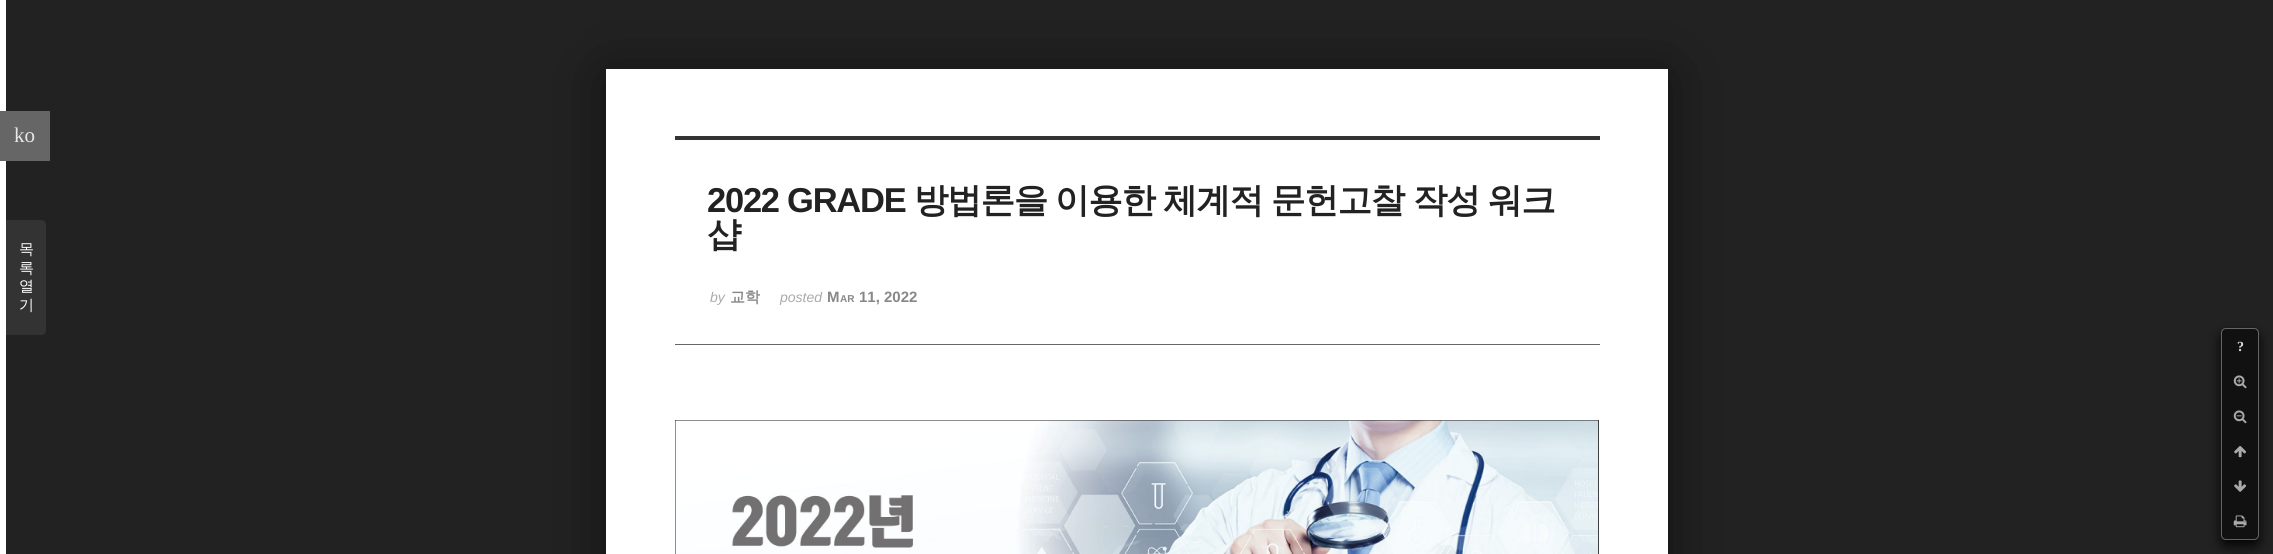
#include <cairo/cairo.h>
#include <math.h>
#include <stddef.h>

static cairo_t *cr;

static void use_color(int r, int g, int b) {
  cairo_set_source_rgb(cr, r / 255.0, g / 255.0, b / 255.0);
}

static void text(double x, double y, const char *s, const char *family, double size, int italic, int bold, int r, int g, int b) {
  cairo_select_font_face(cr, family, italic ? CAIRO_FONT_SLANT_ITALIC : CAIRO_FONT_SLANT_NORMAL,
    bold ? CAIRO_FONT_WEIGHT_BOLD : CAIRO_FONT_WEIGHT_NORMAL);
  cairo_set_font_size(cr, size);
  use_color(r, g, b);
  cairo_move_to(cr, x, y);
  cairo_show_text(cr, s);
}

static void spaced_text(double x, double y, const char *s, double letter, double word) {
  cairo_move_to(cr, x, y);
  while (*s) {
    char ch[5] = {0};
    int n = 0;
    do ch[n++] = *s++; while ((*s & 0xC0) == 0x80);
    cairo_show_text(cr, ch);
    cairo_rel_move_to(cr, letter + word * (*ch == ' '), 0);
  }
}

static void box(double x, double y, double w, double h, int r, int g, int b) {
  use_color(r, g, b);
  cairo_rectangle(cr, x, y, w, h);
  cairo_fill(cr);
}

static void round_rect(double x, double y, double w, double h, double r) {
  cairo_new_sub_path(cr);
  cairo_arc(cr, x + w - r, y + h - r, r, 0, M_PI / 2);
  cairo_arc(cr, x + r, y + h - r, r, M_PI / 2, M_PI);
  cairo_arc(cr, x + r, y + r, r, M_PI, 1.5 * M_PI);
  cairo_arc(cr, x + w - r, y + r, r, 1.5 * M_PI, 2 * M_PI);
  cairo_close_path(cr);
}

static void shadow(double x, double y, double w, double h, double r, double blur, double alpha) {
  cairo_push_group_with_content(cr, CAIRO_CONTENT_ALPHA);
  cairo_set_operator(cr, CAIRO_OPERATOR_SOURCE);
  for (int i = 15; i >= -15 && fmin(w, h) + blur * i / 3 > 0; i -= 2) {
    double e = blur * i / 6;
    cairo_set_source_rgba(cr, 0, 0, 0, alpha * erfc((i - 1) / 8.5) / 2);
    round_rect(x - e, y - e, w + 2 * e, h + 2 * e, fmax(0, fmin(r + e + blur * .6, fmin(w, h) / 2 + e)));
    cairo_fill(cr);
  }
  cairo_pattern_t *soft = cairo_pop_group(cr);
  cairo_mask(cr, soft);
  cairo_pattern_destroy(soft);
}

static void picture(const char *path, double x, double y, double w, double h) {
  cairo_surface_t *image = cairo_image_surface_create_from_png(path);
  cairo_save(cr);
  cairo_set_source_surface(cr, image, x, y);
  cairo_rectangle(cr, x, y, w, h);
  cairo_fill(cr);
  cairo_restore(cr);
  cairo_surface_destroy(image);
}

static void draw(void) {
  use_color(34, 34, 34);
  cairo_paint(cr);
  box(0, 0, 6, 554, 255, 255, 255);
  box(0, 111, 50, 50, 102, 102, 102);
  use_color(0, 0, 0);
  shadow(606, 74, 1062, 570, 0, 30, 0.5);
  box(606, 69, 1062, 485, 255, 255, 255);
  use_color(51, 51, 51);
  cairo_new_path(cr);
  cairo_move_to(cr, 6, 220);
  cairo_line_to(cr, 41, 220);
  cairo_curve_to(cr, 44, 220, 46, 222, 46, 225);
  cairo_line_to(cr, 46, 330);
  cairo_curve_to(cr, 46, 333, 44, 335, 41, 335);
  cairo_line_to(cr, 6, 335);
  cairo_close_path(cr);
  cairo_fill(cr);
  box(675, 136, 925, 4, 51, 51, 51);
  box(675, 344, 925, 1, 102, 102, 102);
  use_color(0, 0, 0);
  shadow(2221, 334, 38, 212, 5, 6, 0.9);
  use_color(17, 17, 17);
  round_rect(2221.5, 328.5, 37, 211, 4.5);
  cairo_fill_preserve(cr);
  use_color(102, 102, 102);
  cairo_set_line_width(cr, 1);
  cairo_stroke(cr);
  picture("img_01.png", 2233, 375, 14, 14);
  picture("img_02.png", 2233, 410, 14, 14);
  picture("img_03.png", 2234, 446, 12, 12);
  picture("img_04.png", 2234, 480, 13, 12);
  picture("img_05.png", 2233, 515, 14, 13);
  picture("img_06.png", 675, 420, 924, 134);
  text(14, 142, "ko", "Liberation Serif", 21, 0, 0, 231, 231, 231);
  text(19, 254, "목", "WenQuanYi Zen Hei Medium", 15, 0, 0, 255, 255, 255);
  text(19, 273, "록", "WenQuanYi Zen Hei Medium", 15, 0, 0, 255, 255, 255);
  text(19, 291, "열", "WenQuanYi Zen Hei Medium", 15, 0, 0, 255, 255, 255);
  text(19, 310, "기", "WenQuanYi Zen Hei Medium", 15, 0, 0, 255, 255, 255);
  cairo_select_font_face(cr, "Liberation Sans", CAIRO_FONT_SLANT_NORMAL, CAIRO_FONT_WEIGHT_BOLD);
  cairo_set_font_size(cr, 34.5);
  use_color(34, 34, 34);
  spaced_text(707, 212, "2022 GRADE", -1.25, 0);
  cairo_select_font_face(cr, "WenQuanYi Zen Hei", CAIRO_FONT_SLANT_NORMAL, CAIRO_FONT_WEIGHT_BOLD);
  spaced_text(914, 212, "방법론을", -1.25, 0);
  spaced_text(1055, 212, "이용한", -1.25, 0);
  spaced_text(1163, 212, "체계적", -1.25, 0);
  spaced_text(1271, 212, "문헌고찰", -1.25, 0);
  spaced_text(1413, 212, "작성", -1.25, 0);
  spaced_text(1488, 212, "워크", -1.25, 0);
  spaced_text(707, 246, "샵", -1.25, 0);
  text(710, 302, "by", "Liberation Sans", 14, 1, 0, 170, 170, 170);
  text(730, 302, "교학", "WenQuanYi Zen Hei", 15, 0, 1, 136, 136, 136);
  text(780, 302, "posted", "Liberation Sans", 14, 1, 0, 170, 170, 170);
  text(827, 302, "M", "Liberation Sans", 15, 0, 1, 136, 136, 136);
  text(840, 302, "AR", "Liberation Sans", 10, 0, 1, 136, 136, 136);
  text(859, 302, "11, 2022", "Liberation Sans", 15, 0, 1, 136, 136, 136);
  cairo_select_font_face(cr, "Liberation Serif", CAIRO_FONT_SLANT_NORMAL, CAIRO_FONT_WEIGHT_BOLD);
  cairo_set_font_size(cr, 14);
  use_color(221, 221, 221);
  spaced_text(2237, 351, "?", -1.25, 0);
}

int main(void) {
  cairo_surface_t *surface = cairo_image_surface_create(CAIRO_FORMAT_RGB24, 2273, 554);
  cr = cairo_create(surface);
  cairo_font_options_t *options = cairo_font_options_create();
  cairo_font_options_set_hint_metrics(options, CAIRO_HINT_METRICS_OFF);
  cairo_font_options_set_hint_style(options, CAIRO_HINT_STYLE_NONE);
  cairo_set_font_options(cr, options);
  cairo_set_miter_limit(cr, 4);
  draw();
  cairo_surface_write_to_png(surface, "out.png");
  cairo_font_options_destroy(options);
  cairo_destroy(cr);
  cairo_surface_destroy(surface);
  return 0;
}
